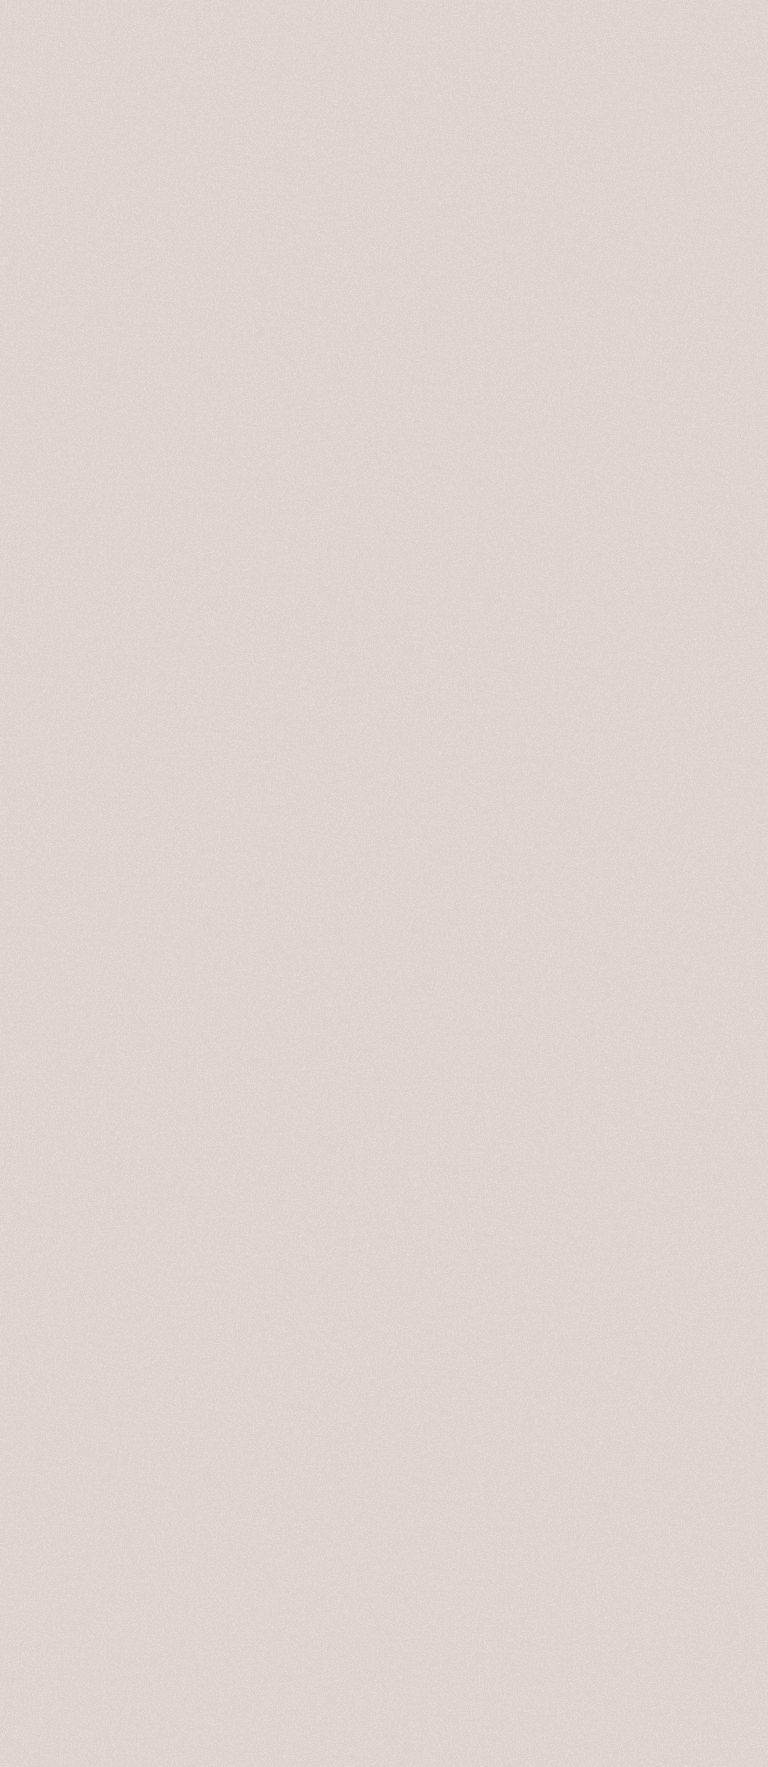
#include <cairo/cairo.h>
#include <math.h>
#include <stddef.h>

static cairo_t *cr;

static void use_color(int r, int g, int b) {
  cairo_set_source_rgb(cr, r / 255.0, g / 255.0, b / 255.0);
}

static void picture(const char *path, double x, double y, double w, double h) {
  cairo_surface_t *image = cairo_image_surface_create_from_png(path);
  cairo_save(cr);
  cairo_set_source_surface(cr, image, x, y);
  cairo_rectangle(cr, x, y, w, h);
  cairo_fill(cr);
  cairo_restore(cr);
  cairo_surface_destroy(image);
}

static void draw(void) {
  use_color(237, 226, 222);
  cairo_paint(cr);
  picture("img_01.png", 0, 0, 768, 1767);
}

int main(void) {
  cairo_surface_t *surface = cairo_image_surface_create(CAIRO_FORMAT_RGB24, 768, 1767);
  cr = cairo_create(surface);
  cairo_font_options_t *options = cairo_font_options_create();
  cairo_font_options_set_hint_metrics(options, CAIRO_HINT_METRICS_OFF);
  cairo_font_options_set_hint_style(options, CAIRO_HINT_STYLE_NONE);
  cairo_set_font_options(cr, options);
  cairo_set_miter_limit(cr, 4);
  draw();
  cairo_surface_write_to_png(surface, "out.png");
  cairo_font_options_destroy(options);
  cairo_destroy(cr);
  cairo_surface_destroy(surface);
  return 0;
}
